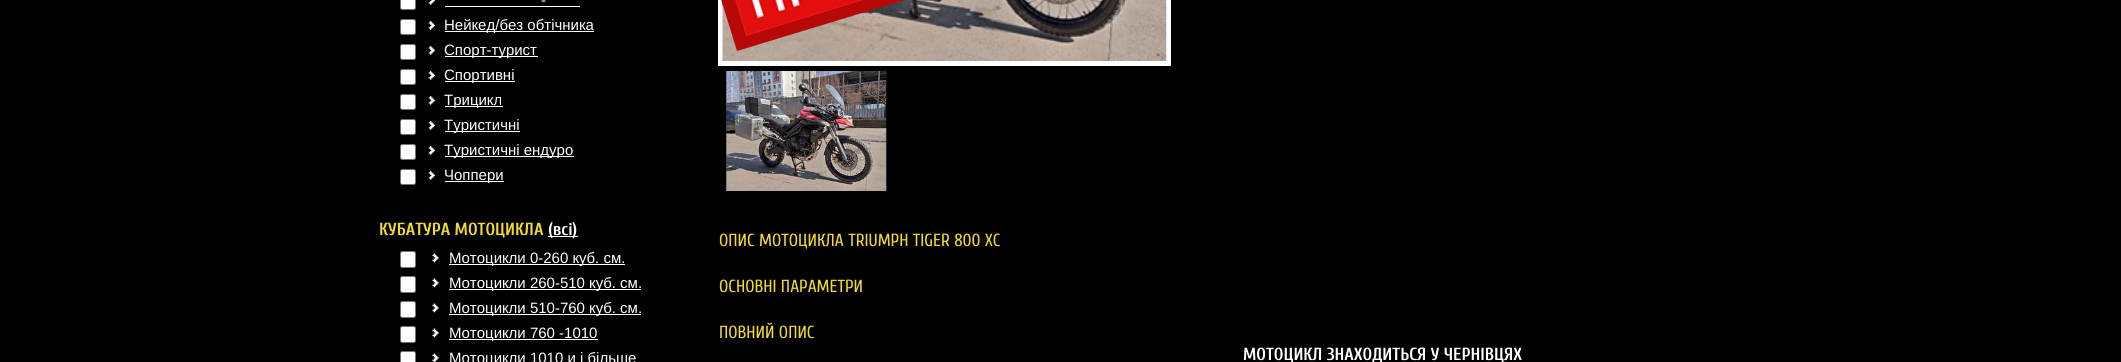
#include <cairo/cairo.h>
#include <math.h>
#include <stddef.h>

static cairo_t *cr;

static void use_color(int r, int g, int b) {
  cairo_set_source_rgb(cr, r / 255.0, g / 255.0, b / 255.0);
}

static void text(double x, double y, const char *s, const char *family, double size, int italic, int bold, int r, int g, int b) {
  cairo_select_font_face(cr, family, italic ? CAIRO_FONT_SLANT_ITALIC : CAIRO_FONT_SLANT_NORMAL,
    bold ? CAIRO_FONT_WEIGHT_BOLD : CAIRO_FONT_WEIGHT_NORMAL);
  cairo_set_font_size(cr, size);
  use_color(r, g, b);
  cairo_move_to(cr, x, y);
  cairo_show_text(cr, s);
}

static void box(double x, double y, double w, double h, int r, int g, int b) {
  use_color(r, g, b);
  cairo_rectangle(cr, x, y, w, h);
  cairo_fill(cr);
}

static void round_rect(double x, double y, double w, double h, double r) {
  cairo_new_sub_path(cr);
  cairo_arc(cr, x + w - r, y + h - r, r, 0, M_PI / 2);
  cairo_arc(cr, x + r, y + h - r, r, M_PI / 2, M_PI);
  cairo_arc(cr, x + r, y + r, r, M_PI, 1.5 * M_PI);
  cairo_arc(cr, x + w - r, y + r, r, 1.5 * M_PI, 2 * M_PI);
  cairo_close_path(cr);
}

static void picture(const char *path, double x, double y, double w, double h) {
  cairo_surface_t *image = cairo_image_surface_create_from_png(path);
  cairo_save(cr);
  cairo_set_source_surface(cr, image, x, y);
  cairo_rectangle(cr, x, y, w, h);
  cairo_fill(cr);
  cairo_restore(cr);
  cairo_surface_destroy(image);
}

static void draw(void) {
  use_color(0, 0, 0);
  cairo_paint(cr);
  use_color(255, 255, 255);
  round_rect(400.5, -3.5, 15, 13, 2);
  cairo_fill_preserve(cr);
  use_color(118, 118, 118);
  cairo_set_line_width(cr, 1);
  cairo_stroke(cr);
  picture("img_01.png", 428, 0, 7, 5);
  box(445, 6, 135, 1, 255, 255, 255);
  round_rect(400.5, 19.5, 15, 15, 2);
  cairo_fill_preserve(cr);
  use_color(118, 118, 118);
  cairo_stroke(cr);
  picture("img_02.png", 428, 21, 7, 9);
  box(445, 31, 149, 1, 255, 255, 255);
  round_rect(400.5, 44.5, 15, 15, 2);
  cairo_fill_preserve(cr);
  use_color(118, 118, 118);
  cairo_stroke(cr);
  picture("img_02.png", 428, 46, 7, 9);
  box(445, 56, 93, 1, 255, 255, 255);
  round_rect(400.5, 69.5, 15, 15, 2);
  cairo_fill_preserve(cr);
  use_color(118, 118, 118);
  cairo_stroke(cr);
  picture("img_02.png", 428, 71, 7, 9);
  box(445, 81, 70, 1, 255, 255, 255);
  round_rect(400.5, 94.5, 15, 15, 2);
  cairo_fill_preserve(cr);
  use_color(118, 118, 118);
  cairo_stroke(cr);
  picture("img_02.png", 428, 96, 7, 9);
  box(445, 106, 58, 1, 255, 255, 255);
  round_rect(400.5, 119.5, 15, 15, 2);
  cairo_fill_preserve(cr);
  use_color(118, 118, 118);
  cairo_stroke(cr);
  picture("img_02.png", 428, 121, 7, 9);
  box(445, 131, 75, 1, 255, 255, 255);
  round_rect(400.5, 144.5, 15, 15, 2);
  cairo_fill_preserve(cr);
  use_color(118, 118, 118);
  cairo_stroke(cr);
  picture("img_03.png", 428, 146, 7, 9);
  box(445, 156, 129, 1, 255, 255, 255);
  round_rect(400.5, 169.5, 15, 15, 2);
  cairo_fill_preserve(cr);
  use_color(118, 118, 118);
  cairo_stroke(cr);
  picture("img_02.png", 428, 171, 7, 9);
  box(445, 181, 59, 1, 255, 255, 255);
  box(548, 236, 30, 1, 255, 255, 255);
  round_rect(400.5, 251.5, 15, 16, 2);
  cairo_fill_preserve(cr);
  use_color(118, 118, 118);
  cairo_stroke(cr);
  picture("img_04.png", 432, 253, 7, 10);
  box(449, 264, 176, 1, 255, 255, 255);
  round_rect(400.5, 276.5, 15, 16, 2);
  cairo_fill_preserve(cr);
  use_color(118, 118, 118);
  cairo_stroke(cr);
  picture("img_04.png", 432, 278, 7, 10);
  box(449, 289, 192, 1, 255, 255, 255);
  round_rect(400.5, 301.5, 15, 16, 2);
  cairo_fill_preserve(cr);
  use_color(118, 118, 118);
  cairo_stroke(cr);
  picture("img_04.png", 432, 303, 7, 10);
  box(449, 314, 192, 1, 255, 255, 255);
  round_rect(400.5, 326.5, 15, 16, 2);
  cairo_fill_preserve(cr);
  use_color(118, 118, 118);
  cairo_stroke(cr);
  picture("img_04.png", 432, 328, 7, 10);
  box(449, 339, 149, 1, 255, 255, 255);
  round_rect(400.5, 351.5, 15, 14, 2);
  cairo_fill_preserve(cr);
  use_color(118, 118, 118);
  cairo_stroke(cr);
  picture("img_05.png", 432, 353, 7, 9);
  cairo_rectangle(cr, 720.5, -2.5, 448, 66);
  use_color(255, 255, 255);
  cairo_set_line_width(cr, 5);
  cairo_stroke(cr);
  picture("img_06.png", 722, 0, 445, 61);
  picture("img_07.png", 726, 71, 161, 120);
  use_color(182, 8, 7);
  cairo_new_path(cr);
  cairo_move_to(cr, 708, -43);
  cairo_line_to(cr, 971, -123);
  cairo_line_to(cr, 1000, -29);
  cairo_line_to(cr, 737, 51);
  cairo_close_path(cr);
  cairo_fill(cr);
  picture("img_08.png", 735, 0, 128, 36);
  text(541, 5, "-", "Liberation Sans", 15, 0, 0, 255, 255, 255);
  text(444, 30, "Нейкед/без обтічника", "Liberation Sans", 15, 0, 0, 255, 255, 255);
  text(444, 55, "Спорт-турист", "Liberation Sans", 15, 0, 0, 255, 255, 255);
  text(444, 80, "Спортивні", "Liberation Sans", 15, 0, 0, 255, 255, 255);
  text(444, 105, "Трицикл", "Liberation Sans", 15, 0, 0, 255, 255, 255);
  text(444, 130, "Туристичні", "Liberation Sans", 15, 0, 0, 255, 255, 255);
  text(444, 155, "Туристичні ендуро", "Liberation Sans", 15, 0, 0, 255, 255, 255);
  text(444, 180, "Чоппери", "Liberation Sans", 15, 0, 0, 255, 255, 255);
  text(379, 235, "КУБАТУРА МОТОЦИКЛА", "Cuprum", 17.5, 0, 1, 242, 218, 47);
  text(548, 235, "(всі)", "Cuprum", 17.5, 0, 1, 255, 255, 255);
  text(449, 263, "Мотоцикли 0-260 куб. см.", "Liberation Sans", 15, 0, 0, 255, 255, 255);
  text(449, 288, "Мотоцикли 260-510 куб. см.", "Liberation Sans", 15, 0, 0, 255, 255, 255);
  text(449, 313, "Мотоцикли 510-760 куб. см.", "Liberation Sans", 15, 0, 0, 255, 255, 255);
  text(449, 338, "Мотоцикли 760 -1010", "Liberation Sans", 15, 0, 0, 255, 255, 255);
  text(449, 363, "Мотоцикли 1010 и і більше", "Liberation Sans", 15, 0, 0, 255, 255, 255);
  text(719, 246, "ОПИС МОТОЦИКЛА TRIUMPH TIGER 800 XC", "Cuprum", 17.5, 0, 0, 242, 218, 47);
  text(719, 292, "ОСНОВНІ ПАРАМЕТРИ", "Cuprum", 17.5, 0, 0, 242, 218, 47);
  text(719, 338, "ПОВНИЙ ОПИС", "Cuprum", 17.5, 0, 0, 242, 218, 47);
  text(1243, 360, "МОТОЦИКЛ ЗНАХОДИТЬСЯ У ЧЕРНІВЦЯХ", "Cuprum", 17.5, 0, 1, 255, 255, 255);
}

int main(void) {
  cairo_surface_t *surface = cairo_image_surface_create(CAIRO_FORMAT_RGB24, 2121, 362);
  cr = cairo_create(surface);
  cairo_font_options_t *options = cairo_font_options_create();
  cairo_font_options_set_hint_metrics(options, CAIRO_HINT_METRICS_OFF);
  cairo_font_options_set_hint_style(options, CAIRO_HINT_STYLE_NONE);
  cairo_set_font_options(cr, options);
  cairo_set_miter_limit(cr, 4);
  draw();
  cairo_surface_write_to_png(surface, "out.png");
  cairo_font_options_destroy(options);
  cairo_destroy(cr);
  cairo_surface_destroy(surface);
  return 0;
}
